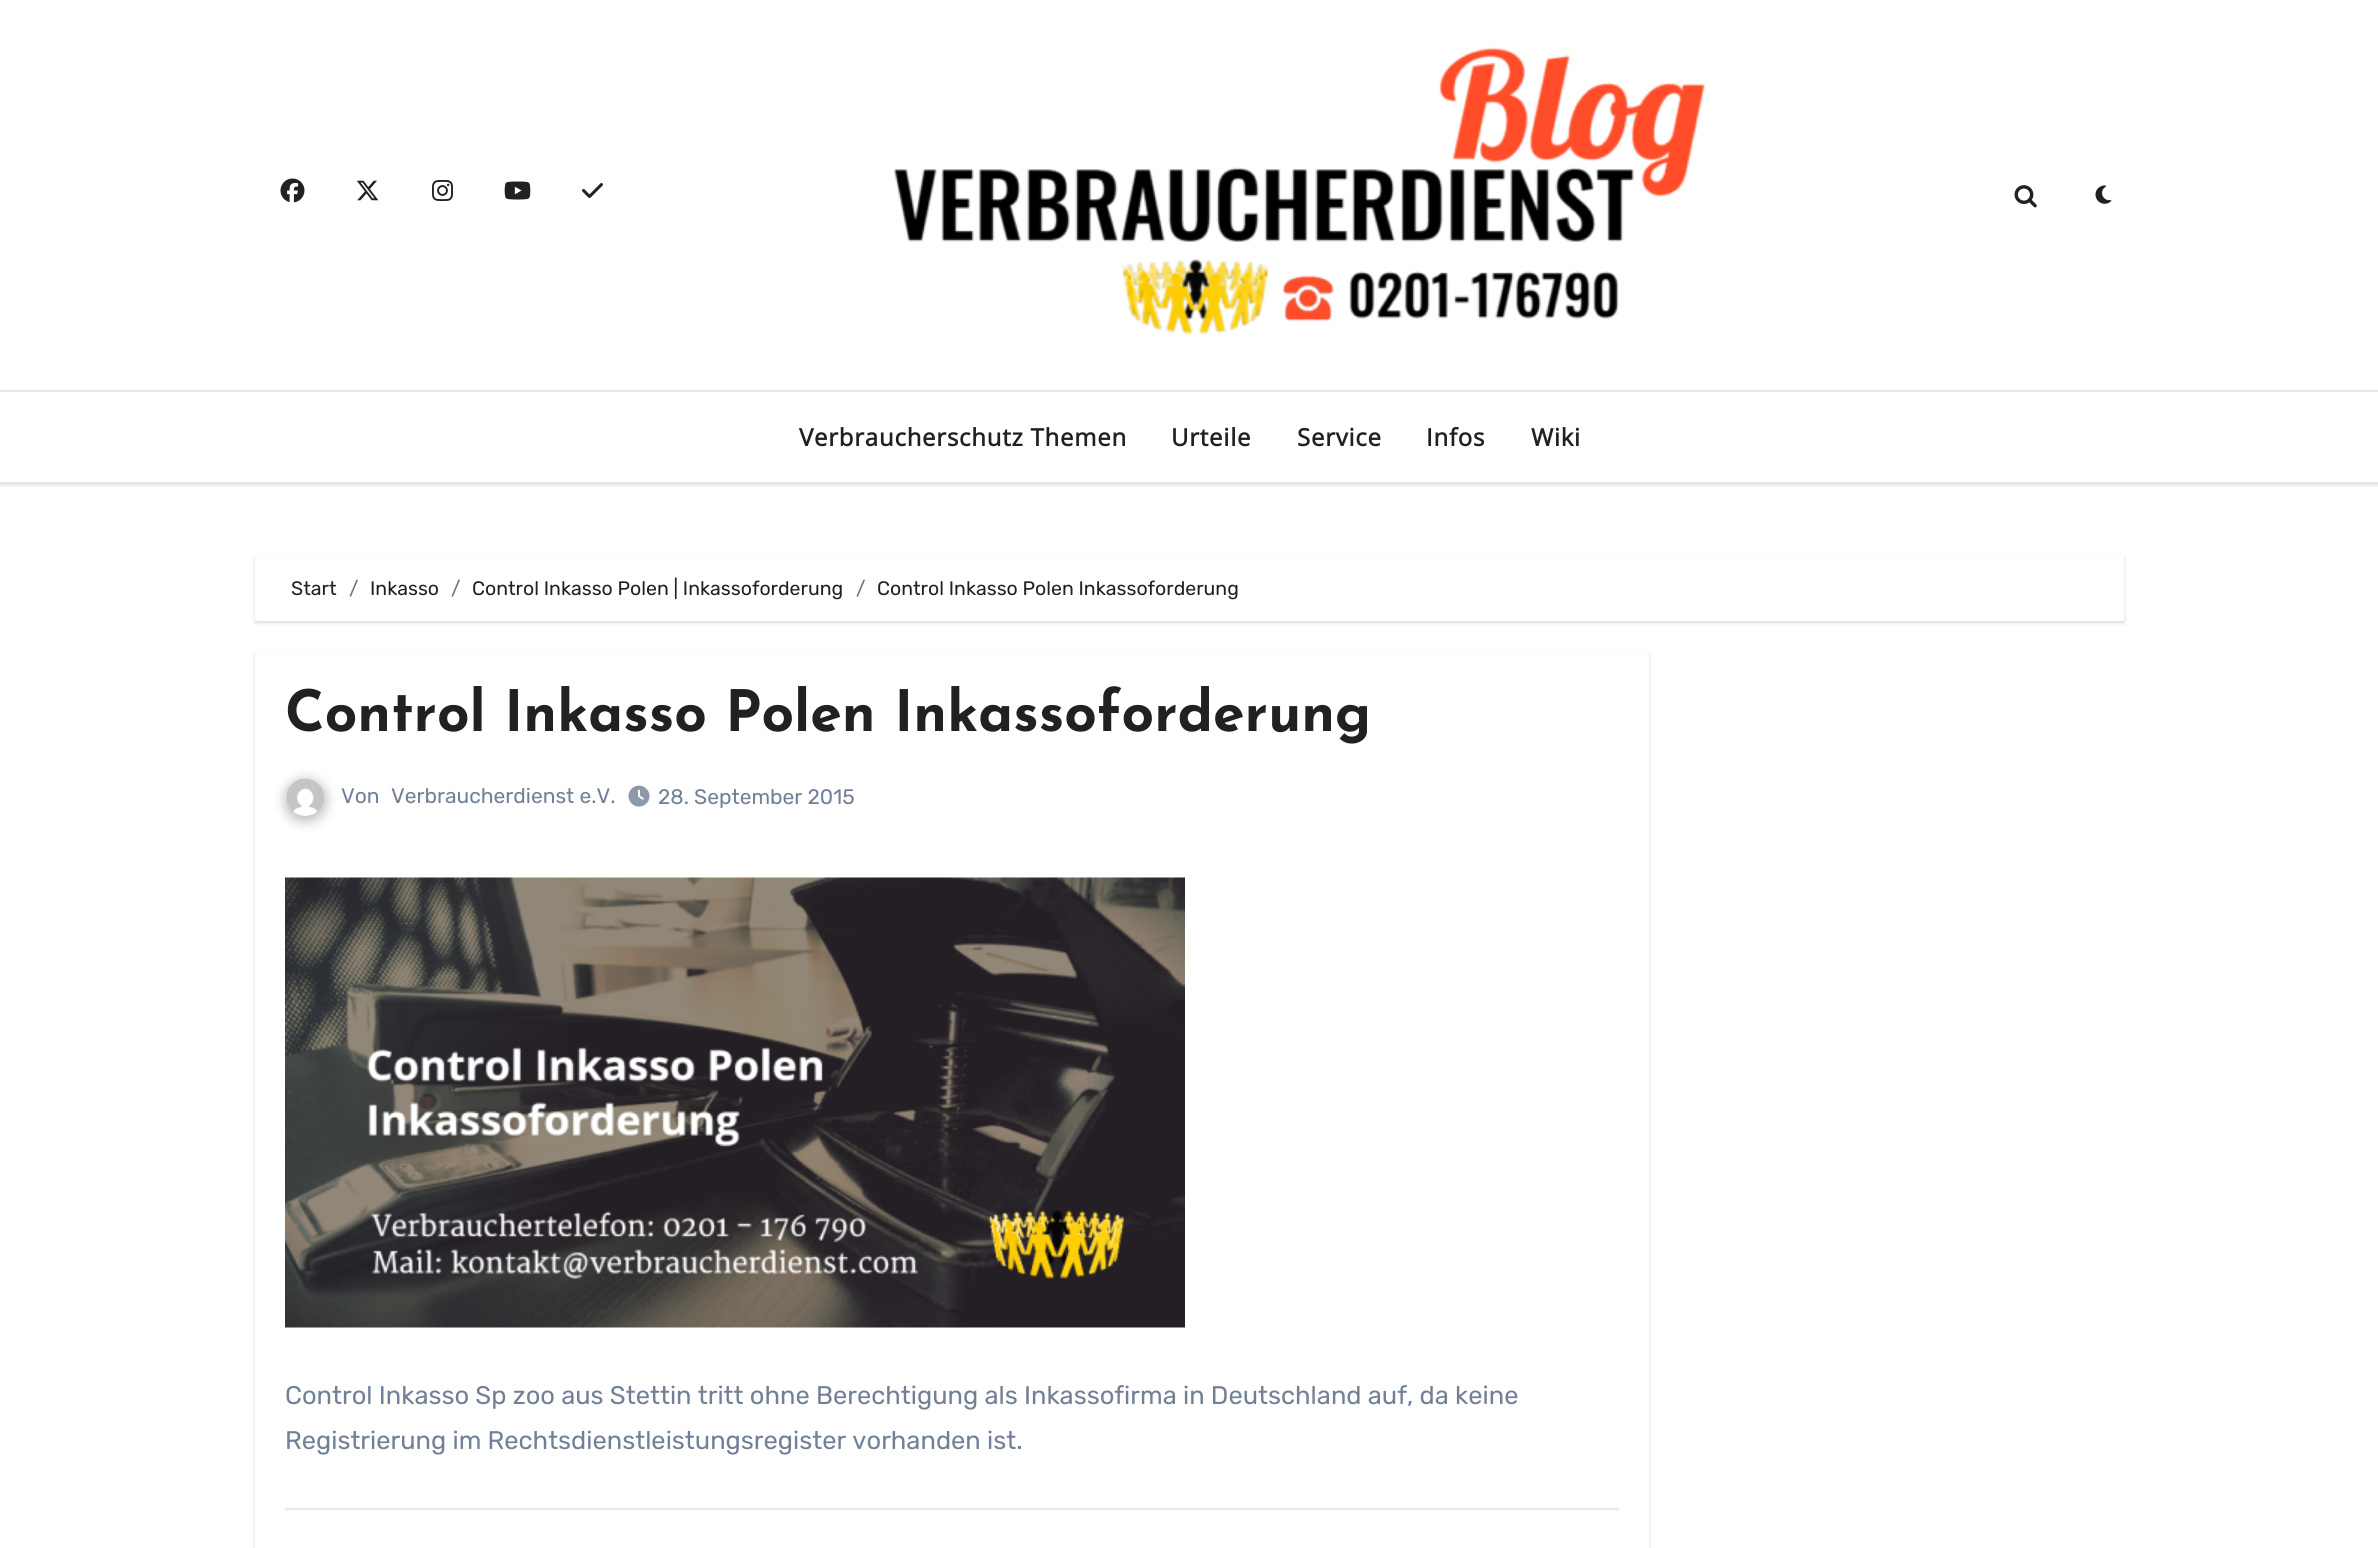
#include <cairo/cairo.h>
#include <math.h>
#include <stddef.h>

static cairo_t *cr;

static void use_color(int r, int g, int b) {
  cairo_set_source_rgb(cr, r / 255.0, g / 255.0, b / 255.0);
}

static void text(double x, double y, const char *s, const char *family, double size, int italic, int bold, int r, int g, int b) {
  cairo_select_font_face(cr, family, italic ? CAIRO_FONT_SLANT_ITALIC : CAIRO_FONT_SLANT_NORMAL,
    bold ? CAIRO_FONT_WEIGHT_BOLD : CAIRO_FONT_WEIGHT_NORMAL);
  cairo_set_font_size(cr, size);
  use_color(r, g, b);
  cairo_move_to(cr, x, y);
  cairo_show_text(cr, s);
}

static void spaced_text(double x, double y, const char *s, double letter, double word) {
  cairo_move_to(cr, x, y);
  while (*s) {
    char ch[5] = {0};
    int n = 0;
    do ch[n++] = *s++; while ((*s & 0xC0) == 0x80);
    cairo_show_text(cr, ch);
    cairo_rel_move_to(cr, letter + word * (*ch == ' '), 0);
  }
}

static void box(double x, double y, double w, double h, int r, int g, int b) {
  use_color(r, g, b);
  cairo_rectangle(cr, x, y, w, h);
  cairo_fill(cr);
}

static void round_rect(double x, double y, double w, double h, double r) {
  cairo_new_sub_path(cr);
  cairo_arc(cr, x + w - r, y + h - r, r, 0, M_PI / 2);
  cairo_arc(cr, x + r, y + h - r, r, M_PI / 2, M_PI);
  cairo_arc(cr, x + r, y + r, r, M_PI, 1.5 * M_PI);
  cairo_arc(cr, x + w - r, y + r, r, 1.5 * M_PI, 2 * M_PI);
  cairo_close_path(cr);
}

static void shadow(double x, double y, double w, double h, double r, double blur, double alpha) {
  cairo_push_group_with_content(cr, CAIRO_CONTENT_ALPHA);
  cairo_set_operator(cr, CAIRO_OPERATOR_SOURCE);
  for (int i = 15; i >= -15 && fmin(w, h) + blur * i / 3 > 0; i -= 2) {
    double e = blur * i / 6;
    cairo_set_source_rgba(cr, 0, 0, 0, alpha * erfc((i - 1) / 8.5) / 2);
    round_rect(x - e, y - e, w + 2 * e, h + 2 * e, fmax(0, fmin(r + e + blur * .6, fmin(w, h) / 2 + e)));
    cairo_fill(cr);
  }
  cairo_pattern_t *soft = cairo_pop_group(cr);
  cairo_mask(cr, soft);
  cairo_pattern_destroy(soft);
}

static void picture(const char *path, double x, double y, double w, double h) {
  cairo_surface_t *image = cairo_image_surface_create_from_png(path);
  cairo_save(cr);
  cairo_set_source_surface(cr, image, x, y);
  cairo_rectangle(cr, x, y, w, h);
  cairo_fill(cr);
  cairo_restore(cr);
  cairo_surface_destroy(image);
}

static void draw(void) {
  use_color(255, 255, 255);
  cairo_paint(cr);
  picture("img_01.png", 280, 178, 25, 25);
  picture("img_02.png", 356, 180, 23, 21);
  picture("img_03.png", 432, 180, 21, 21);
  picture("img_04.png", 504, 181, 27, 19);
  picture("img_05.png", 582, 183, 21, 15);
  picture("img_06.png", 893, 47, 813, 288);
  picture("img_07.png", 2014, 185, 23, 23);
  picture("img_08.png", 2095, 185, 17, 19);
  cairo_save(cr);
  cairo_rectangle(cr, 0, 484, 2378, 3);
  cairo_clip(cr);
  use_color(0, 0, 0);
  shadow(0, 392, 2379, 93, 0, 2, 0.15);
  cairo_restore(cr);
  box(0, 390, 2378, 2, 226, 232, 240);
  box(0, 482, 2378, 2, 226, 232, 240);
  cairo_save(cr);
  cairo_set_fill_rule(cr, CAIRO_FILL_RULE_EVEN_ODD);
  cairo_new_path(cr);
  cairo_move_to(cr, 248, 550);
  cairo_line_to(cr, 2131, 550);
  cairo_line_to(cr, 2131, 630);
  cairo_line_to(cr, 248, 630);
  cairo_close_path(cr);
  cairo_move_to(cr, 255, 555);
  cairo_line_to(cr, 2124, 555);
  cairo_line_to(cr, 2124, 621);
  cairo_line_to(cr, 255, 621);
  cairo_close_path(cr);
  cairo_clip(cr);
  use_color(0, 0, 0);
  shadow(255, 557, 1869, 66, 0, 2, 0.15);
  cairo_restore(cr);
  cairo_save(cr);
  cairo_set_fill_rule(cr, CAIRO_FILL_RULE_EVEN_ODD);
  cairo_new_path(cr);
  cairo_move_to(cr, 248, 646);
  cairo_line_to(cr, 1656, 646);
  cairo_line_to(cr, 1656, 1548);
  cairo_line_to(cr, 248, 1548);
  cairo_close_path(cr);
  cairo_move_to(cr, 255, 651);
  cairo_line_to(cr, 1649, 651);
  cairo_line_to(cr, 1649, 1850);
  cairo_line_to(cr, 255, 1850);
  cairo_close_path(cr);
  cairo_clip(cr);
  use_color(0, 0, 0);
  shadow(255, 653, 1394, 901, 0, 2, 0.15);
  cairo_restore(cr);
  use_color(33, 33, 33);
  shadow(285, 780, 41, 41, 20.5, 6, 0.3);
  picture("img_09.png", 286, 778, 38, 38);
  picture("img_10.png", 628, 785, 22, 22);
  picture("img_11.png", 285, 877, 900, 451);
  box(285, 1508, 1334, 2, 226, 232, 240);
  cairo_select_font_face(cr, "Open Sans", CAIRO_FONT_SLANT_NORMAL, CAIRO_FONT_WEIGHT_BOLD);
  cairo_set_font_size(cr, 24);
  use_color(33, 33, 33);
  spaced_text(799, 446, "Verbraucherschutz Themen", 0.75, 0);
  spaced_text(1171, 446, "Urteile", 0.75, 0);
  spaced_text(1297, 446, "Service", 0.75, 0);
  spaced_text(1426, 446, "Infos", 0.75, 0);
  spaced_text(1531, 446, "Wiki", 0.75, 0);
  text(291, 595, "Start", "Rubik Light", 19.5, 0, 0, 33, 33, 33);
  text(349, 595, "/", "Rubik Light", 19.5, 0, 0, 108, 117, 125);
  text(370, 595, "Inkasso", "Rubik Light", 19.5, 0, 0, 33, 33, 33);
  text(451, 595, "/", "Rubik Light", 19.5, 0, 0, 108, 117, 125);
  text(472, 595, "Control Inkasso Polen | Inkassoforderung", "Rubik Light", 19.5, 0, 0, 33, 33, 33);
  text(856, 595, "/", "Rubik Light", 19.5, 0, 0, 108, 117, 125);
  text(877, 595, "Control Inkasso Polen Inkassoforderung", "Rubik Light", 19.5, 0, 0, 33, 33, 33);
  text(285, 731, "Control Inkasso Polen Inkassoforderung", "Josefin Sans", 57, 0, 1, 33, 33, 33);
  text(341, 803, "Von", "Rubik Light", 21, 0, 0, 113, 128, 150);
  text(391, 803, "Verbraucherdienst e.V.", "Rubik Light", 21, 0, 0, 113, 128, 150);
  text(658, 804, "28. September 2015", "Rubik Light", 21, 0, 0, 113, 128, 150);
  text(285, 1404, "Control Inkasso Sp zoo aus Stettin tritt ohne Berechtigung als Inkassofirma in Deutschland auf, da keine", "Rubik Light", 25.5, 0, 0, 113, 128, 150);
  text(285, 1449, "Registrierung im Rechtsdienstleistungsregister vorhanden ist.", "Rubik Light", 25.5, 0, 0, 113, 128, 150);
}

int main(void) {
  cairo_surface_t *surface = cairo_image_surface_create(CAIRO_FORMAT_RGB24, 2378, 1548);
  cr = cairo_create(surface);
  cairo_font_options_t *options = cairo_font_options_create();
  cairo_font_options_set_hint_metrics(options, CAIRO_HINT_METRICS_OFF);
  cairo_font_options_set_hint_style(options, CAIRO_HINT_STYLE_NONE);
  cairo_set_font_options(cr, options);
  cairo_set_miter_limit(cr, 4);
  draw();
  cairo_surface_write_to_png(surface, "out.png");
  cairo_font_options_destroy(options);
  cairo_destroy(cr);
  cairo_surface_destroy(surface);
  return 0;
}
